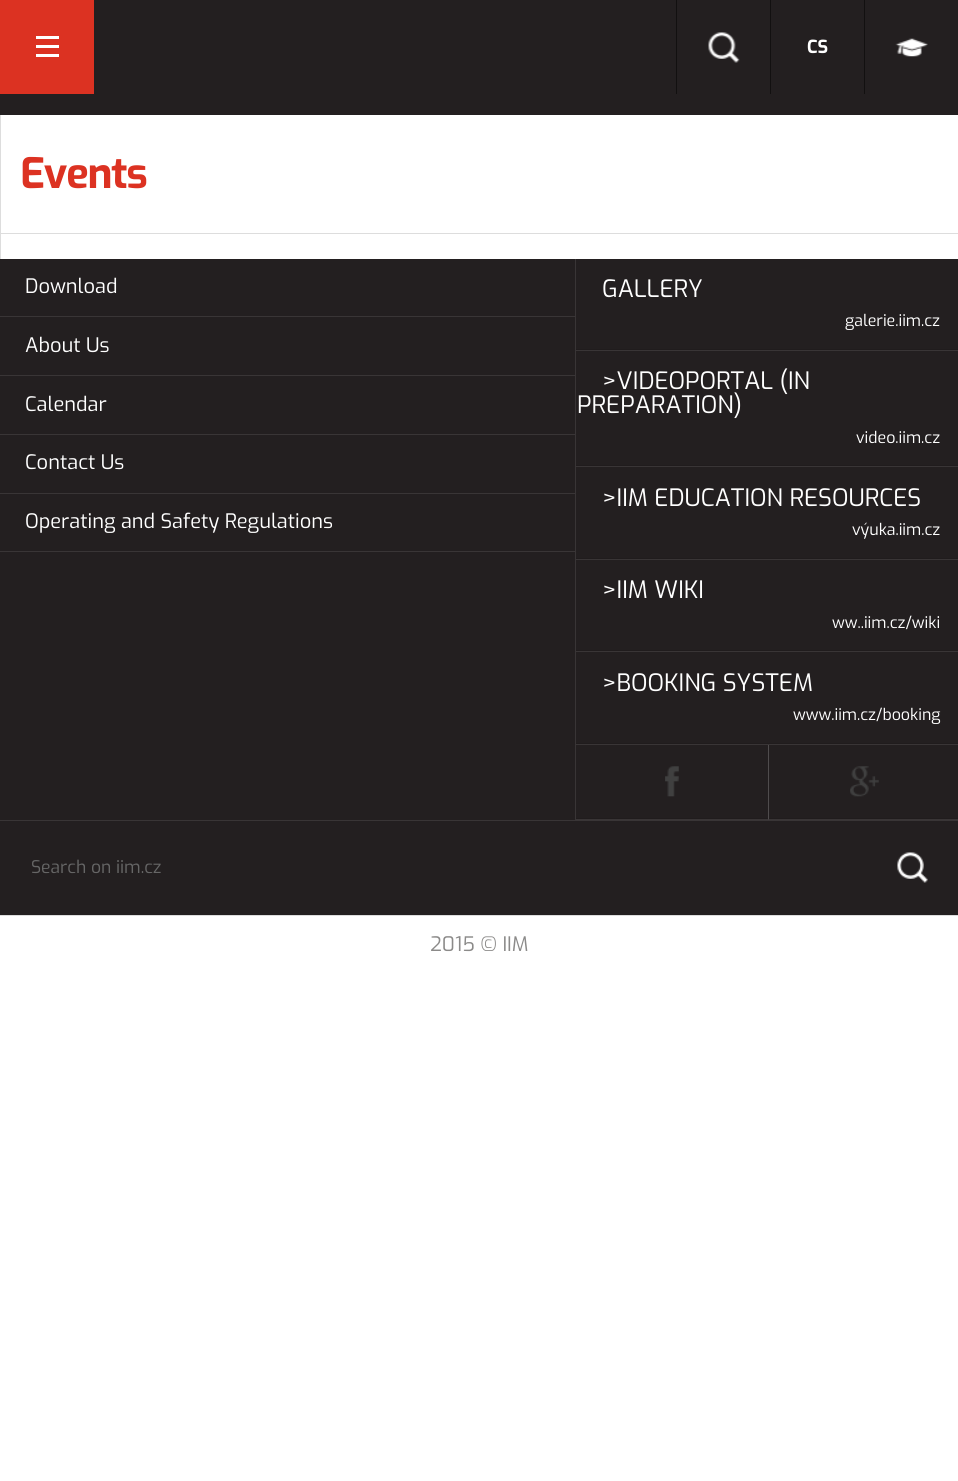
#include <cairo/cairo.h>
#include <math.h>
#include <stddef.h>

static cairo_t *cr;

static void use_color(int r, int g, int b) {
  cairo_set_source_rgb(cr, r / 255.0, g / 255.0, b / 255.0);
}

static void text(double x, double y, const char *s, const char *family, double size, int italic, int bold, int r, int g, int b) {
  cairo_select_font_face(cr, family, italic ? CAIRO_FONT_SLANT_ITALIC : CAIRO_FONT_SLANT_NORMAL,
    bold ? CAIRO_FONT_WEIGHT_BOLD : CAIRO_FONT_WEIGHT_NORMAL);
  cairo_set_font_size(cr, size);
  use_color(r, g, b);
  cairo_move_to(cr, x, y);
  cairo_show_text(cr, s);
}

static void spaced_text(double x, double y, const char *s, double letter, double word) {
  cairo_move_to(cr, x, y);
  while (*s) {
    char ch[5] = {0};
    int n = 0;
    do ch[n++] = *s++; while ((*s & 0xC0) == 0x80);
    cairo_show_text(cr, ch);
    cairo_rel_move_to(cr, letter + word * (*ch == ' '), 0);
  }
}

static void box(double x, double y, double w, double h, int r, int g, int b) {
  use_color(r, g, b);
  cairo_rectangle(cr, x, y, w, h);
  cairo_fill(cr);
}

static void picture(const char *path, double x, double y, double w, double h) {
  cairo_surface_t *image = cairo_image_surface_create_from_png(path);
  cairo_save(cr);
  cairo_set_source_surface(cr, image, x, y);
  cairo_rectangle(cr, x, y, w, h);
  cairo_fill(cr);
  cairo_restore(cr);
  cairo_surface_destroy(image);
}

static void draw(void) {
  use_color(255, 255, 255);
  cairo_paint(cr);
  box(0, 0, 958, 115, 35, 31, 32);
  box(0, 0, 94, 94, 220, 50, 34);
  box(36, 54, 23, 3, 255, 255, 255);
  box(36, 45, 23, 3, 255, 255, 255);
  box(36, 36, 23, 3, 255, 255, 255);
  box(676, 0, 1, 94, 18, 16, 16);
  picture("img_01.png", 708, 32, 32, 31);
  box(770, 0, 1, 94, 18, 16, 16);
  box(864, 0, 1, 94, 18, 16, 16);
  picture("img_02.png", 895, 38, 33, 19);
  box(0, 115, 1, 144, 221, 221, 221);
  box(1, 233, 957, 1, 221, 221, 221);
  box(0, 259, 958, 561, 35, 31, 32);
  box(0, 316, 575, 1, 57, 53, 54);
  box(0, 375, 575, 1, 57, 53, 54);
  box(0, 434, 575, 1, 57, 53, 54);
  box(0, 493, 575, 1, 57, 53, 54);
  box(0, 551, 575, 1, 57, 53, 54);
  box(575, 259, 1, 561, 57, 53, 54);
  box(576, 350, 382, 1, 57, 53, 54);
  box(576, 349, 382, 1, 32, 28, 29);
  box(576, 466, 382, 1, 57, 53, 54);
  box(576, 465, 382, 1, 32, 28, 29);
  box(576, 559, 382, 1, 57, 53, 54);
  box(576, 558, 382, 1, 32, 28, 29);
  box(576, 651, 382, 1, 57, 53, 54);
  box(576, 650, 382, 1, 32, 28, 29);
  box(576, 744, 382, 1, 57, 53, 54);
  box(576, 743, 382, 1, 32, 28, 29);
  box(576, 819, 192, 1, 57, 53, 54);
  picture("img_03.png", 665, 766, 14, 31);
  box(576, 818, 192, 1, 32, 28, 29);
  use_color(57, 53, 54);
  cairo_new_path(cr);
  cairo_move_to(cr, 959, 820);
  cairo_line_to(cr, 768, 820);
  cairo_line_to(cr, 769, 819);
  cairo_line_to(cr, 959, 819);
  cairo_close_path(cr);
  cairo_fill(cr);
  cairo_set_source_rgba(cr, 1, 1, 1, 0.2);
  cairo_new_path(cr);
  cairo_move_to(cr, 768, 820);
  cairo_line_to(cr, 768, 745);
  cairo_line_to(cr, 769, 745);
  cairo_line_to(cr, 769, 819);
  cairo_close_path(cr);
  cairo_fill(cr);
  picture("img_04.png", 850, 766, 29, 31);
  box(769, 818, 189, 1, 32, 28, 29);
  box(0, 821, 958, 94, 35, 31, 32);
  box(0, 820, 958, 1, 57, 53, 54);
  picture("img_05.png", 897, 852, 31, 31);
  box(0, 915, 958, 1, 221, 221, 221);
  text(807, 53, "CS", "Exo", 18, 0, 1, 255, 255, 255);
  cairo_set_font_size(cr, 42);
  use_color(220, 50, 34);
  spaced_text(20, 188, "Events", -1.25, 0);
  text(25, 293, "Download", "Exo", 20, 0, 0, 255, 255, 255);
  text(25, 352, "About Us", "Exo", 20, 0, 0, 255, 255, 255);
  text(25, 411, "Calendar", "Exo", 20, 0, 0, 255, 255, 255);
  text(25, 469, "Contact Us", "Exo", 20, 0, 0, 255, 255, 255);
  text(25, 528, "Operating and Safety Regulations", "Exo", 20, 0, 0, 255, 255, 255);
  text(602, 297, "GALLERY", "Exo", 24, 0, 0, 255, 255, 255);
  text(845, 326, "galerie.iim.cz", "Exo", 16, 0, 0, 255, 255, 255);
  text(602, 389, ">VIDEOPORTAL (IN", "Exo", 24, 0, 0, 255, 255, 255);
  text(577, 413, "PREPARATION)", "Exo", 24, 0, 0, 255, 255, 255);
  text(856, 443, "video.iim.cz", "Exo", 16, 0, 0, 255, 255, 255);
  text(602, 506, ">IIM EDUCATION RESOURCES", "Exo", 24, 0, 0, 255, 255, 255);
  text(852, 535, "výuka.iim.cz", "Exo", 16, 0, 0, 255, 255, 255);
  text(602, 598, ">IIM WIKI", "Exo", 24, 0, 0, 255, 255, 255);
  text(832, 628, "ww..iim.cz/wiki", "Exo", 16, 0, 0, 255, 255, 255);
  text(602, 691, ">BOOKING SYSTEM", "Exo", 24, 0, 0, 255, 255, 255);
  text(793, 720, "www.iim.cz/booking", "Exo", 16, 0, 0, 255, 255, 255);
  text(31, 873, "Search on iim.cz", "Exo", 17.5, 0, 0, 102, 102, 102);
  text(430, 951, "2015 © IIM", "Exo", 20, 0, 0, 139, 138, 137);
}

int main(void) {
  cairo_surface_t *surface = cairo_image_surface_create(CAIRO_FORMAT_RGB24, 958, 1481);
  cr = cairo_create(surface);
  cairo_font_options_t *options = cairo_font_options_create();
  cairo_font_options_set_hint_metrics(options, CAIRO_HINT_METRICS_OFF);
  cairo_font_options_set_hint_style(options, CAIRO_HINT_STYLE_NONE);
  cairo_set_font_options(cr, options);
  cairo_set_miter_limit(cr, 4);
  draw();
  cairo_surface_write_to_png(surface, "out.png");
  cairo_font_options_destroy(options);
  cairo_destroy(cr);
  cairo_surface_destroy(surface);
  return 0;
}
